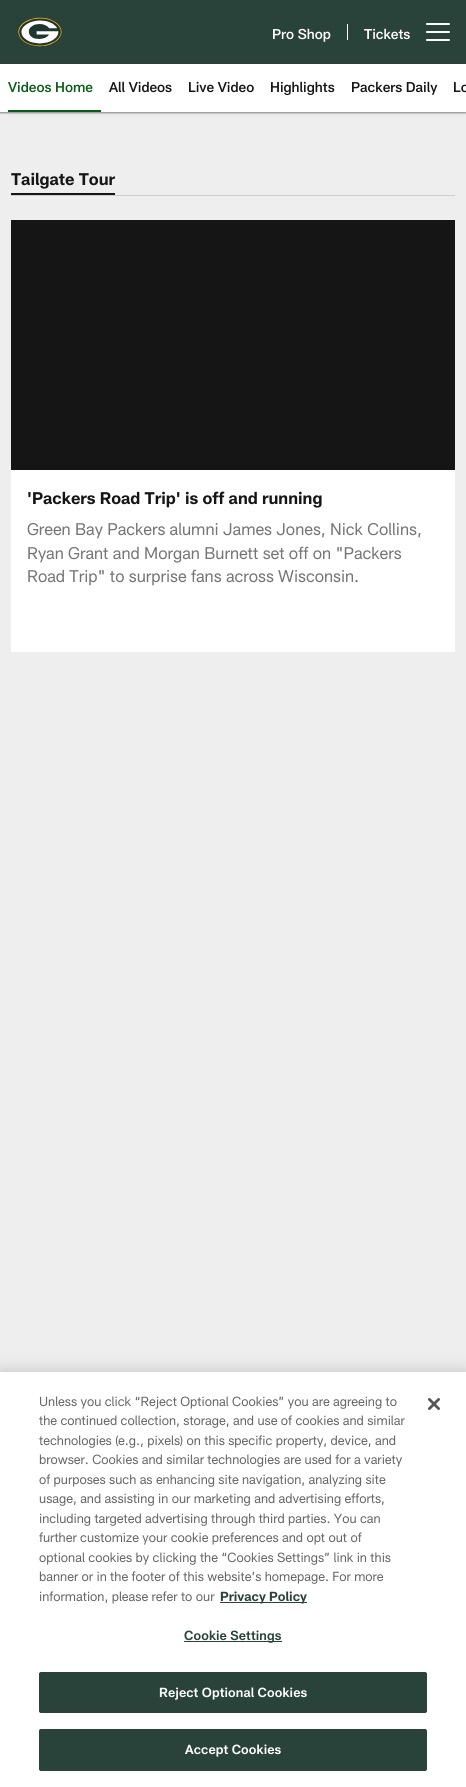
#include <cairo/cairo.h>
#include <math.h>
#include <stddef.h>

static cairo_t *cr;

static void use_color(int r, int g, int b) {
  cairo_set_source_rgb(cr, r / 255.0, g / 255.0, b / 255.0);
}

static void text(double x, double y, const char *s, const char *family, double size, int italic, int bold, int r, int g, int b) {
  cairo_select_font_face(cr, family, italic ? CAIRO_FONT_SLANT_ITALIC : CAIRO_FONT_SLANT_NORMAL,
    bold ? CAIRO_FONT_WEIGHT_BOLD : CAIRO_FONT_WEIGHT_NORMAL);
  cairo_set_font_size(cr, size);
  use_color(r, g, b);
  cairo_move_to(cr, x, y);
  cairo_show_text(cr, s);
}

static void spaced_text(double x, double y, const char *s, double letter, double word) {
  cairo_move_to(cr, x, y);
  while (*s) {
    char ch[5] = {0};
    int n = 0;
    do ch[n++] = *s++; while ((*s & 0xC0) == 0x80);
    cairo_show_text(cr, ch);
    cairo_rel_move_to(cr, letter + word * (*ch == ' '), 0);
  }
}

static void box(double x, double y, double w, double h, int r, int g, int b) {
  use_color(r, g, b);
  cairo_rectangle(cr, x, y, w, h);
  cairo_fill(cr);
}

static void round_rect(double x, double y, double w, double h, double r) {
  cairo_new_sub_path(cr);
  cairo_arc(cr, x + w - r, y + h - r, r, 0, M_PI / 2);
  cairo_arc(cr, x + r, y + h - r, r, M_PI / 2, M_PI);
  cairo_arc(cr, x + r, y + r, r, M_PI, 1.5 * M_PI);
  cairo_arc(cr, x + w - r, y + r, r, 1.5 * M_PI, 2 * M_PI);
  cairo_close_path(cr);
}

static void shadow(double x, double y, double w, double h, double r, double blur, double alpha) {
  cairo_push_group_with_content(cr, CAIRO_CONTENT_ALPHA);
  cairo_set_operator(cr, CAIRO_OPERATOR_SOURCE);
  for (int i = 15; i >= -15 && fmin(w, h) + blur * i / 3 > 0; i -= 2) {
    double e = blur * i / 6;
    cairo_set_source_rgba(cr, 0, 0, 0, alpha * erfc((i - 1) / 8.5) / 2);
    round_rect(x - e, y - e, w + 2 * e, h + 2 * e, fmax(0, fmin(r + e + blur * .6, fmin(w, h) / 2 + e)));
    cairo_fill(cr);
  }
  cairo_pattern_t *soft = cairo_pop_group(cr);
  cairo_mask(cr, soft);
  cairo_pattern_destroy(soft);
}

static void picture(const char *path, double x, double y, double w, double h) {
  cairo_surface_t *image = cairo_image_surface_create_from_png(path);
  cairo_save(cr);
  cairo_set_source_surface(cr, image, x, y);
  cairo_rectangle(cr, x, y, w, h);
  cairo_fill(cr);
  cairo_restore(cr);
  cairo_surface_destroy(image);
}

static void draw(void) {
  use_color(238, 238, 238);
  cairo_paint(cr);
  box(0, 0, 466, 64, 42, 67, 58);
  picture("img_01.png", 18, 17, 44, 30);
  box(347, 24, 1, 16, 255, 255, 255);
  round_rect(426, 31, 24, 2, 1);
  cairo_fill(cr);
  round_rect(426, 23, 24, 2, 1);
  cairo_fill(cr);
  round_rect(426, 39, 24, 2, 1);
  cairo_fill(cr);
  use_color(0, 0, 0);
  shadow(0, 65, 466, 48, 0, 1, 0.47);
  box(0, 64, 466, 48, 255, 255, 255);
  box(8, 110, 93, 2, 8, 92, 22);
  box(11, 195, 444, 1, 204, 204, 204);
  box(11, 193, 104, 2, 21, 21, 21);
  box(11, 470, 444, 182, 255, 255, 255);
  box(11, 220, 444, 250, 21, 21, 21);
  use_color(0, 0, 0);
  shadow(0, 1372, 466, 415, 0, 9, 0.2);
  box(0, 1372, 466, 415, 255, 255, 255);
  box(220, 1602, 87, 1, 42, 67, 58);
  box(184, 1641, 98, 1, 42, 67, 58);
  round_rect(39.5, 1672.5, 387, 40, 1.5);
  cairo_fill_preserve(cr);
  cairo_set_line_width(cr, 1);
  cairo_stroke(cr);
  round_rect(39.5, 1729.5, 387, 41, 1.5);
  cairo_fill_preserve(cr);
  cairo_stroke(cr);
  picture("img_02.png", 428, 1398, 12, 12);
  text(272, 39, "Pro Shop", "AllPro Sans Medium", 14, 0, 0, 255, 255, 255);
  text(364, 39, "Tickets", "AllPro Sans Medium", 14, 0, 0, 255, 255, 255);
  text(8, 92, "Videos Home", "AllPro Sans Medium", 14, 0, 0, 8, 92, 22);
  text(109, 92, "All Videos", "AllPro Sans Medium", 14, 0, 0, 21, 21, 21);
  text(188, 92, "Live Video", "AllPro Sans Medium", 14, 0, 0, 21, 21, 21);
  text(270, 92, "Highlights", "AllPro Sans Medium", 14, 0, 0, 21, 21, 21);
  text(351, 92, "Packers Daily", "AllPro Sans Medium", 14, 0, 0, 21, 21, 21);
  text(453, 92, "Lo", "AllPro Sans Medium", 14, 0, 0, 21, 21, 21);
  text(11, 185, "Tailgate Tour", "AllPro Sans", 16.65, 0, 1, 21, 21, 21);
  text(27, 504, "'Packers Road Trip' is off and running", "AllPro Sans", 16.65, 0, 1, 21, 21, 21);
  text(27, 535, "Green Bay Packers alumni James Jones, Nick Collins,", "AllPro Sans", 16.65, 0, 0, 117, 117, 117);
  text(27, 559, "Ryan Grant and Morgan Burnett set off on \"Packers", "AllPro Sans", 16.65, 0, 0, 117, 117, 117);
  text(27, 582, "Road Trip\" to surprise fans across Wisconsin.", "AllPro Sans", 16.65, 0, 0, 117, 117, 117);
  text(39, 1406, "Unless you click “Reject Optional Cookies” you are agreeing to", "AllPro Sans", 13, 0, 0, 102, 102, 102);
  text(39, 1425, "the continued collection, storage, and use of cookies and similar", "AllPro Sans", 13, 0, 0, 102, 102, 102);
  text(39, 1445, "technologies (e.g., pixels) on this specific property, device, and", "AllPro Sans", 13, 0, 0, 102, 102, 102);
  text(39, 1464, "browser. Cookies and similar technologies are used for a variety", "AllPro Sans", 13, 0, 0, 102, 102, 102);
  text(39, 1484, "of purposes such as enhancing site navigation, analyzing site", "AllPro Sans", 13, 0, 0, 102, 102, 102);
  text(39, 1503, "usage, and assisting in our marketing and advertising efforts,", "AllPro Sans", 13, 0, 0, 102, 102, 102);
  text(39, 1523, "including targeted advertising through third parties. You can", "AllPro Sans", 13, 0, 0, 102, 102, 102);
  text(39, 1542, "further customize your cookie preferences and opt out of", "AllPro Sans", 13, 0, 0, 102, 102, 102);
  text(39, 1562, "optional cookies by clicking the “Cookies Settings” link in this", "AllPro Sans", 13, 0, 0, 102, 102, 102);
  text(39, 1581, "banner or in the footer of this website’s homepage. For more", "AllPro Sans", 13, 0, 0, 102, 102, 102);
  text(39, 1601, "information, please refer to our", "AllPro Sans", 13, 0, 0, 102, 102, 102);
  text(220, 1601, "Privacy Policy", "AllPro Sans", 13, 0, 1, 42, 67, 58);
  cairo_select_font_face(cr, "AllPro Sans SemiBold", CAIRO_FONT_SLANT_NORMAL, CAIRO_FONT_WEIGHT_NORMAL);
  spaced_text(184, 1640, "Cookie Settings", 0.1, 0);
  use_color(255, 255, 255);
  spaced_text(159, 1697, "Reject Optional Cookies", 0.1, 0);
  spaced_text(185, 1754, "Accept Cookies", 0.1, 0);
}

int main(void) {
  cairo_surface_t *surface = cairo_image_surface_create(CAIRO_FORMAT_RGB24, 466, 1787);
  cr = cairo_create(surface);
  cairo_font_options_t *options = cairo_font_options_create();
  cairo_font_options_set_hint_metrics(options, CAIRO_HINT_METRICS_OFF);
  cairo_font_options_set_hint_style(options, CAIRO_HINT_STYLE_NONE);
  cairo_set_font_options(cr, options);
  cairo_set_miter_limit(cr, 4);
  draw();
  cairo_surface_write_to_png(surface, "out.png");
  cairo_font_options_destroy(options);
  cairo_destroy(cr);
  cairo_surface_destroy(surface);
  return 0;
}
